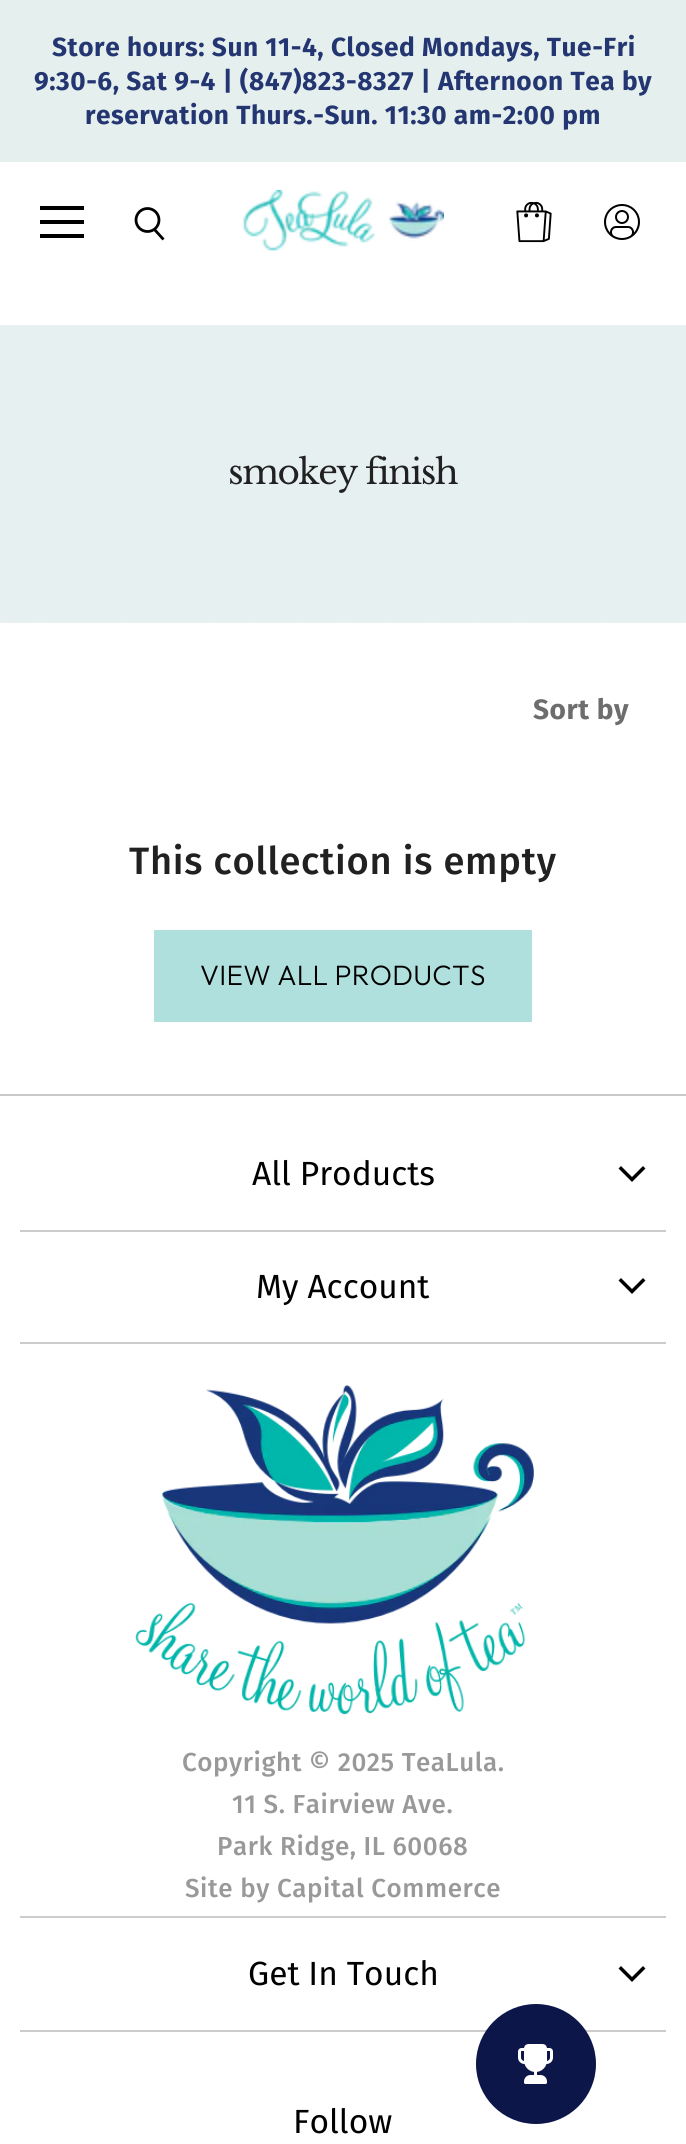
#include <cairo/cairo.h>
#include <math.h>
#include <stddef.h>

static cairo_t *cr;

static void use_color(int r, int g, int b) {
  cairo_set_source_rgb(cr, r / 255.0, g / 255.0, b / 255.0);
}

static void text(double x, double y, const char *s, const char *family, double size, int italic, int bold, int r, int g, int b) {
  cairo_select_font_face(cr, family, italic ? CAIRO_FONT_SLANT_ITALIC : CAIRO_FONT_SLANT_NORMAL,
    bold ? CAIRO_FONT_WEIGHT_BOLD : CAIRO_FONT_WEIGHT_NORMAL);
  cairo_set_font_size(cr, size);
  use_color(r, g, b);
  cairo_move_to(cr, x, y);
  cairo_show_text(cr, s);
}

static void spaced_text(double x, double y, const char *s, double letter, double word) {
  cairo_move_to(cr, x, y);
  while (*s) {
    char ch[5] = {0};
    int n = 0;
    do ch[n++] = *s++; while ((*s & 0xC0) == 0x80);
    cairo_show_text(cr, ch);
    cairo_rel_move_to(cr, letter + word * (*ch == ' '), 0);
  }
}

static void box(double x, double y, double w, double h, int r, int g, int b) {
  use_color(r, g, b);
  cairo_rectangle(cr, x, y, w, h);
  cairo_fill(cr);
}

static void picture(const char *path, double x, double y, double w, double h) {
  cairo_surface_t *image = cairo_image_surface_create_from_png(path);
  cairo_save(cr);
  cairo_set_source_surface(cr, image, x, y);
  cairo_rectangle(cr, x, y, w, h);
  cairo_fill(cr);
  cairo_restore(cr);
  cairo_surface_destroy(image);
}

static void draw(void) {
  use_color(255, 255, 255);
  cairo_paint(cr);
  box(0, 0, 686, 162, 229, 239, 238);
  box(40, 206, 44, 4, 0, 0, 0);
  box(40, 220, 44, 4, 0, 0, 0);
  box(40, 234, 44, 4, 0, 0, 0);
  cairo_new_path(cr);
  cairo_move_to(cr, 163.5, 239.5);
  cairo_line_to(cr, 154, 229);
  cairo_set_line_width(cr, 2.8);
  cairo_stroke(cr);
  cairo_arc(cr, 147.5, 220, 11.5, 0, 2 * M_PI);
  cairo_stroke(cr);
  picture("img_01.png", 243, 190, 201, 61);
  picture("img_02.png", 516, 201, 36, 42);
  picture("img_03.png", 604, 204, 36, 36);
  picture("img_04.png", 0, 325, 686, 298);
  box(154, 930, 378, 92, 176, 224, 221);
  box(0, 1094, 686, 2, 201, 201, 201);
  box(20, 1230, 646, 2, 204, 204, 204);
  cairo_new_path(cr);
  cairo_move_to(cr, 632, 1179.5);
  cairo_line_to(cr, 643, 1168.5);
  cairo_move_to(cr, 632, 1179.5);
  cairo_line_to(cr, 621, 1168.5);
  use_color(0, 0, 0);
  cairo_set_line_width(cr, 3.5);
  cairo_set_line_cap(cr, CAIRO_LINE_CAP_SQUARE);
  cairo_stroke(cr);
  box(20, 1342, 646, 2, 204, 204, 204);
  cairo_new_path(cr);
  cairo_move_to(cr, 632, 1291.5);
  cairo_line_to(cr, 643, 1280.5);
  cairo_move_to(cr, 632, 1291.5);
  cairo_line_to(cr, 621, 1280.5);
  use_color(0, 0, 0);
  cairo_stroke(cr);
  box(20, 1916, 646, 2, 204, 204, 204);
  picture("img_05.png", 135, 1385, 399, 330);
  box(20, 2030, 646, 2, 204, 204, 204);
  cairo_new_path(cr);
  cairo_move_to(cr, 632, 1979.5);
  cairo_line_to(cr, 643, 1968.5);
  cairo_move_to(cr, 632, 1979.5);
  cairo_line_to(cr, 621, 1968.5);
  use_color(0, 0, 0);
  cairo_stroke(cr);
  use_color(13, 22, 72);
  cairo_arc(cr, 536, 2064, 60, 0, 2 * M_PI);
  cairo_fill(cr);
  picture("img_06.png", 518, 2044, 35, 40);
  cairo_select_font_face(cr, "Fira Sans", CAIRO_FONT_SLANT_NORMAL, CAIRO_FONT_WEIGHT_BOLD);
  cairo_set_font_size(cr, 26.25);
  use_color(36, 54, 113);
  spaced_text(52, 56, "Store hours: Sun 11-4, Closed Mondays, Tue-Fri", 0.53, 0);
  spaced_text(34, 90, "9:30-6, Sat 9-4 | (847)823-8327 | Afternoon Tea by", 0.53, 0);
  spaced_text(85, 124, "reservation Thurs.-Sun. 11:30 am-2:00 pm", 0.53, 0);
  cairo_select_font_face(cr, "Libre Baskerville", CAIRO_FONT_SLANT_NORMAL, CAIRO_FONT_WEIGHT_NORMAL);
  cairo_set_font_size(cr, 34.25);
  use_color(33, 33, 33);
  spaced_text(228, 484, "smokey finish", -1.4, 0);
  cairo_select_font_face(cr, "Fira Sans", CAIRO_FONT_SLANT_NORMAL, CAIRO_FONT_WEIGHT_BOLD);
  cairo_set_font_size(cr, 28);
  use_color(109, 109, 109);
  spaced_text(533, 719, "Sort by", 0.55, 0);
  cairo_select_font_face(cr, "Fira Sans Medium", CAIRO_FONT_SLANT_NORMAL, CAIRO_FONT_WEIGHT_NORMAL);
  cairo_set_font_size(cr, 38.1);
  use_color(33, 33, 33);
  spaced_text(129, 874, "This collection is empty", 0.75, 0);
  cairo_select_font_face(cr, "Outfit Light", CAIRO_FONT_SLANT_NORMAL, CAIRO_FONT_WEIGHT_NORMAL);
  cairo_set_font_size(cr, 28);
  use_color(0, 0, 0);
  spaced_text(200, 985, "VIEW ALL PRODUCTS", 0.25, 0);
  text(252, 1185, "All Products", "Fira Sans", 33.5, 0, 0, 0, 0, 0);
  text(256, 1298, "My Account", "Fira Sans", 33.5, 0, 0, 0, 0, 0);
  cairo_select_font_face(cr, "Fira Sans Medium", CAIRO_FONT_SLANT_NORMAL, CAIRO_FONT_WEIGHT_NORMAL);
  cairo_set_font_size(cr, 26);
  use_color(153, 153, 153);
  spaced_text(182, 1771, "Copyright © 2025 TeaLula.", 0.55, 0);
  spaced_text(232, 1813, "11 S. Fairview Ave.", 0.55, 0);
  spaced_text(217, 1855, "Park Ridge, IL 60068", 0.55, 0);
  spaced_text(185, 1897, "Site by Capital Commerce", 0.55, 0);
  text(248, 1985, "Get In Touch", "Fira Sans", 33.5, 0, 0, 0, 0, 0);
  text(293, 2133, "Follow", "Fira Sans", 33.5, 0, 0, 0, 0, 0);
}

int main(void) {
  cairo_surface_t *surface = cairo_image_surface_create(CAIRO_FORMAT_RGB24, 686, 2144);
  cr = cairo_create(surface);
  cairo_font_options_t *options = cairo_font_options_create();
  cairo_font_options_set_hint_metrics(options, CAIRO_HINT_METRICS_OFF);
  cairo_font_options_set_hint_style(options, CAIRO_HINT_STYLE_NONE);
  cairo_set_font_options(cr, options);
  cairo_set_miter_limit(cr, 4);
  draw();
  cairo_surface_write_to_png(surface, "out.png");
  cairo_font_options_destroy(options);
  cairo_destroy(cr);
  cairo_surface_destroy(surface);
  return 0;
}
